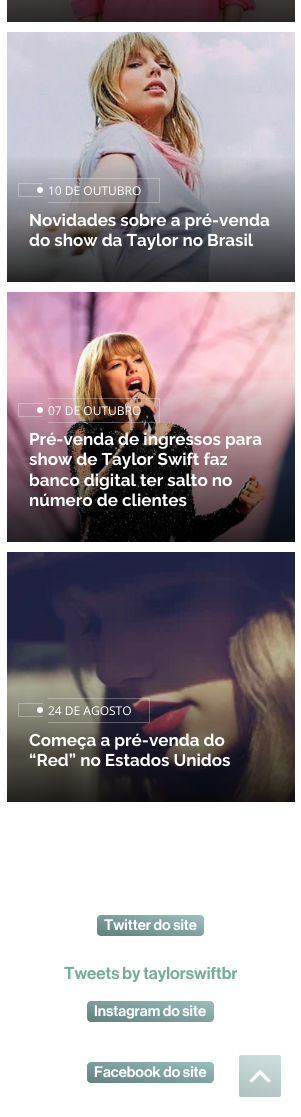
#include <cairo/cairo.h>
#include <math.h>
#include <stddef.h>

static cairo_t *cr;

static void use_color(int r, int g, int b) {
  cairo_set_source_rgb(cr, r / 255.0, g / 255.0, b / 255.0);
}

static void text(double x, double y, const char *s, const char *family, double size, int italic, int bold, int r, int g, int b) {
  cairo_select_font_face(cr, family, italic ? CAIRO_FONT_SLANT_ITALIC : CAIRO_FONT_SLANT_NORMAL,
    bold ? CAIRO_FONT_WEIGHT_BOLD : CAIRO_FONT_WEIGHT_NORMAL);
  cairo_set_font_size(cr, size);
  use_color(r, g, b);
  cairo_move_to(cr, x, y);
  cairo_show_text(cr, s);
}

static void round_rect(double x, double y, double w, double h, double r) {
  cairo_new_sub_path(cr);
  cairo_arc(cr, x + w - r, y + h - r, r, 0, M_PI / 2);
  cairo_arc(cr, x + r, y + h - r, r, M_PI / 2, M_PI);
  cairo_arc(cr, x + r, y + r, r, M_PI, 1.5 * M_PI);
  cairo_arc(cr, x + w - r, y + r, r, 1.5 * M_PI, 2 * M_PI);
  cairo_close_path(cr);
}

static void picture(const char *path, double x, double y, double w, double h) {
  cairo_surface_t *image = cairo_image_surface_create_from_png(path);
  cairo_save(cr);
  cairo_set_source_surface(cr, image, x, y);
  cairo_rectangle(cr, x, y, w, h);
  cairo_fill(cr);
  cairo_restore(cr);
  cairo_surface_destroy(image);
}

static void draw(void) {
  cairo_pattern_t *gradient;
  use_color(255, 255, 255);
  cairo_paint(cr);
  picture("img_01.png", 7, 0, 288, 22);
  picture("img_02.png", 7, 32, 288, 250);
  cairo_set_source_rgba(cr, 1, 1, 1, 0.29);
  cairo_new_path(cr);
  cairo_move_to(cr, 18, 183);
  cairo_line_to(cr, 43, 183);
  cairo_line_to(cr, 43, 184);
  cairo_line_to(cr, 19, 184);
  cairo_close_path(cr);
  cairo_move_to(cr, 43, 197);
  cairo_line_to(cr, 18, 197);
  cairo_line_to(cr, 19, 196);
  cairo_line_to(cr, 43, 196);
  cairo_close_path(cr);
  cairo_fill(cr);
  cairo_new_path(cr);
  cairo_move_to(cr, 18, 197);
  cairo_line_to(cr, 18, 183);
  cairo_line_to(cr, 19, 184);
  cairo_line_to(cr, 19, 196);
  cairo_close_path(cr);
  cairo_fill(cr);
  cairo_new_path(cr);
  cairo_move_to(cr, 48, 178);
  cairo_line_to(cr, 160, 178);
  cairo_line_to(cr, 159, 179);
  cairo_line_to(cr, 48, 179);
  cairo_close_path(cr);
  cairo_fill(cr);
  cairo_new_path(cr);
  cairo_move_to(cr, 160, 178);
  cairo_line_to(cr, 160, 203);
  cairo_line_to(cr, 159, 202);
  cairo_line_to(cr, 159, 179);
  cairo_close_path(cr);
  cairo_fill(cr);
  cairo_new_path(cr);
  cairo_move_to(cr, 160, 203);
  cairo_line_to(cr, 48, 203);
  cairo_line_to(cr, 48, 202);
  cairo_line_to(cr, 159, 202);
  cairo_close_path(cr);
  cairo_fill(cr);
  use_color(255, 255, 255);
  cairo_arc(cr, 40, 190, 3, 0, 2 * M_PI);
  cairo_fill(cr);
  picture("img_03.png", 7, 292, 288, 250);
  cairo_set_source_rgba(cr, 1, 1, 1, 0.29);
  cairo_new_path(cr);
  cairo_move_to(cr, 18, 403);
  cairo_line_to(cr, 43, 403);
  cairo_line_to(cr, 43, 404);
  cairo_line_to(cr, 19, 404);
  cairo_close_path(cr);
  cairo_move_to(cr, 43, 417);
  cairo_line_to(cr, 18, 417);
  cairo_line_to(cr, 19, 416);
  cairo_line_to(cr, 43, 416);
  cairo_close_path(cr);
  cairo_fill(cr);
  cairo_new_path(cr);
  cairo_move_to(cr, 18, 417);
  cairo_line_to(cr, 18, 403);
  cairo_line_to(cr, 19, 404);
  cairo_line_to(cr, 19, 416);
  cairo_close_path(cr);
  cairo_fill(cr);
  cairo_new_path(cr);
  cairo_move_to(cr, 48, 398);
  cairo_line_to(cr, 160, 398);
  cairo_line_to(cr, 159, 399);
  cairo_line_to(cr, 48, 399);
  cairo_close_path(cr);
  cairo_fill(cr);
  cairo_new_path(cr);
  cairo_move_to(cr, 160, 398);
  cairo_line_to(cr, 160, 423);
  cairo_line_to(cr, 159, 422);
  cairo_line_to(cr, 159, 399);
  cairo_close_path(cr);
  cairo_fill(cr);
  cairo_new_path(cr);
  cairo_move_to(cr, 160, 423);
  cairo_line_to(cr, 48, 423);
  cairo_line_to(cr, 48, 422);
  cairo_line_to(cr, 159, 422);
  cairo_close_path(cr);
  cairo_fill(cr);
  use_color(255, 255, 255);
  cairo_arc(cr, 40, 410, 3, 0, 2 * M_PI);
  cairo_fill(cr);
  picture("img_04.png", 7, 552, 288, 250);
  use_color(179, 179, 167);
  cairo_new_path(cr);
  cairo_move_to(cr, 18, 703);
  cairo_line_to(cr, 43, 703);
  cairo_line_to(cr, 43, 704);
  cairo_line_to(cr, 19, 704);
  cairo_close_path(cr);
  cairo_fill(cr);
  use_color(168, 168, 157);
  cairo_new_path(cr);
  cairo_move_to(cr, 43, 717);
  cairo_line_to(cr, 18, 717);
  cairo_line_to(cr, 19, 716);
  cairo_line_to(cr, 43, 716);
  cairo_close_path(cr);
  cairo_fill(cr);
  cairo_set_source_rgba(cr, 1, 1, 1, 0.29);
  cairo_new_path(cr);
  cairo_move_to(cr, 18, 717);
  cairo_line_to(cr, 18, 703);
  cairo_line_to(cr, 19, 704);
  cairo_line_to(cr, 19, 716);
  cairo_close_path(cr);
  cairo_fill(cr);
  cairo_new_path(cr);
  cairo_move_to(cr, 48, 698);
  cairo_line_to(cr, 150, 698);
  cairo_line_to(cr, 149, 699);
  cairo_line_to(cr, 48, 699);
  cairo_close_path(cr);
  cairo_fill(cr);
  cairo_new_path(cr);
  cairo_move_to(cr, 150, 698);
  cairo_line_to(cr, 150, 723);
  cairo_line_to(cr, 149, 722);
  cairo_line_to(cr, 149, 699);
  cairo_close_path(cr);
  cairo_fill(cr);
  cairo_new_path(cr);
  cairo_move_to(cr, 150, 723);
  cairo_line_to(cr, 48, 723);
  cairo_line_to(cr, 48, 722);
  cairo_line_to(cr, 149, 722);
  cairo_close_path(cr);
  cairo_fill(cr);
  use_color(255, 255, 255);
  cairo_arc(cr, 40, 710, 3, 0, 2 * M_PI);
  cairo_fill(cr);
  gradient = cairo_pattern_create_linear(155, 905, 146, 946);
  cairo_pattern_add_color_stop_rgba(gradient, 0, 0.6, 0.749, 0.741, 1);
  cairo_pattern_add_color_stop_rgba(gradient, 1, 0.38, 0.502, 0.494, 1);
  cairo_set_source(cr, gradient);
  cairo_pattern_destroy(gradient);
  round_rect(97, 915, 107, 21, 4);
  cairo_fill(cr);
  gradient = cairo_pattern_create_linear(155, 989, 146, 1034);
  cairo_pattern_add_color_stop_rgba(gradient, 0, 0.6, 0.749, 0.741, 1);
  cairo_pattern_add_color_stop_rgba(gradient, 1, 0.38, 0.502, 0.494, 1);
  cairo_set_source(cr, gradient);
  cairo_pattern_destroy(gradient);
  round_rect(87, 1001, 127, 21, 4);
  cairo_fill(cr);
  gradient = cairo_pattern_create_linear(155, 1050, 146, 1095);
  cairo_pattern_add_color_stop_rgba(gradient, 0, 0.6, 0.749, 0.741, 1);
  cairo_pattern_add_color_stop_rgba(gradient, 1, 0.38, 0.502, 0.494, 1);
  cairo_set_source(cr, gradient);
  cairo_pattern_destroy(gradient);
  round_rect(87, 1062, 127, 21, 4);
  cairo_fill(cr);
  gradient = cairo_pattern_create_linear(265, 1052, 255, 1100);
  cairo_pattern_add_color_stop_rgba(gradient, 0, 0.8, 0.875, 0.871, 1);
  cairo_pattern_add_color_stop_rgba(gradient, 1, 0.69, 0.753, 0.749, 1);
  cairo_set_source(cr, gradient);
  cairo_pattern_destroy(gradient);
  round_rect(239, 1055, 42, 42, 2);
  cairo_fill(cr);
  use_color(255, 255, 255);
  cairo_new_path(cr);
  cairo_move_to(cr, 268, 1082.5);
  cairo_line_to(cr, 260, 1074.5);
  cairo_line_to(cr, 252, 1082.5);
  cairo_line_to(cr, 249, 1081);
  cairo_line_to(cr, 260, 1069.5);
  cairo_line_to(cr, 271, 1081);
  cairo_close_path(cr);
  cairo_fill(cr);
  text(48, 195, "10 DE OUTUBRO", "Open Sans", 12, 0, 0, 255, 255, 255);
  text(29, 226, "Novidades sobre a pré-venda", "Raleway", 17, 0, 1, 255, 255, 255);
  text(29, 246, "do show da Taylor no Brasil", "Raleway", 17, 0, 1, 255, 255, 255);
  text(48, 415, "07 DE OUTUBRO", "Open Sans", 12, 0, 0, 255, 255, 255);
  text(29, 445, "Pré-venda de ingressos para", "Raleway", 17, 0, 1, 255, 255, 255);
  text(29, 465, "show de Taylor Swift faz", "Raleway", 17, 0, 1, 255, 255, 255);
  text(29, 486, "banco digital ter salto no", "Raleway", 17, 0, 1, 255, 255, 255);
  text(29, 506, "número de clientes", "Raleway", 17, 0, 1, 255, 255, 255);
  text(48, 715, "24 DE AGOSTO", "Open Sans", 12, 0, 0, 255, 255, 255);
  text(29, 746, "Começa a pré-venda do", "Raleway", 17, 0, 1, 255, 255, 255);
  text(29, 766, "“Red” no Estados Unidos", "Raleway", 17, 0, 1, 255, 255, 255);
  text(104, 930, "Twitter do site", "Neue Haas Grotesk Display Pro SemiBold", 15, 0, 0, 255, 255, 255);
  text(64, 979, "Tweets by taylorswiftbr", "Neue Haas Grotesk Display Pro SemiBold", 17, 0, 0, 116, 173, 153);
  text(94, 1016, "Instagram do site", "Neue Haas Grotesk Display Pro SemiBold", 15, 0, 0, 255, 255, 255);
  text(94, 1077, "Facebook do site", "Neue Haas Grotesk Display Pro SemiBold", 15, 0, 0, 255, 255, 255);
}

int main(void) {
  cairo_surface_t *surface = cairo_image_surface_create(CAIRO_FORMAT_RGB24, 301, 1117);
  cr = cairo_create(surface);
  cairo_font_options_t *options = cairo_font_options_create();
  cairo_font_options_set_hint_metrics(options, CAIRO_HINT_METRICS_OFF);
  cairo_font_options_set_hint_style(options, CAIRO_HINT_STYLE_NONE);
  cairo_set_font_options(cr, options);
  cairo_set_miter_limit(cr, 4);
  draw();
  cairo_surface_write_to_png(surface, "out.png");
  cairo_font_options_destroy(options);
  cairo_destroy(cr);
  cairo_surface_destroy(surface);
  return 0;
}
